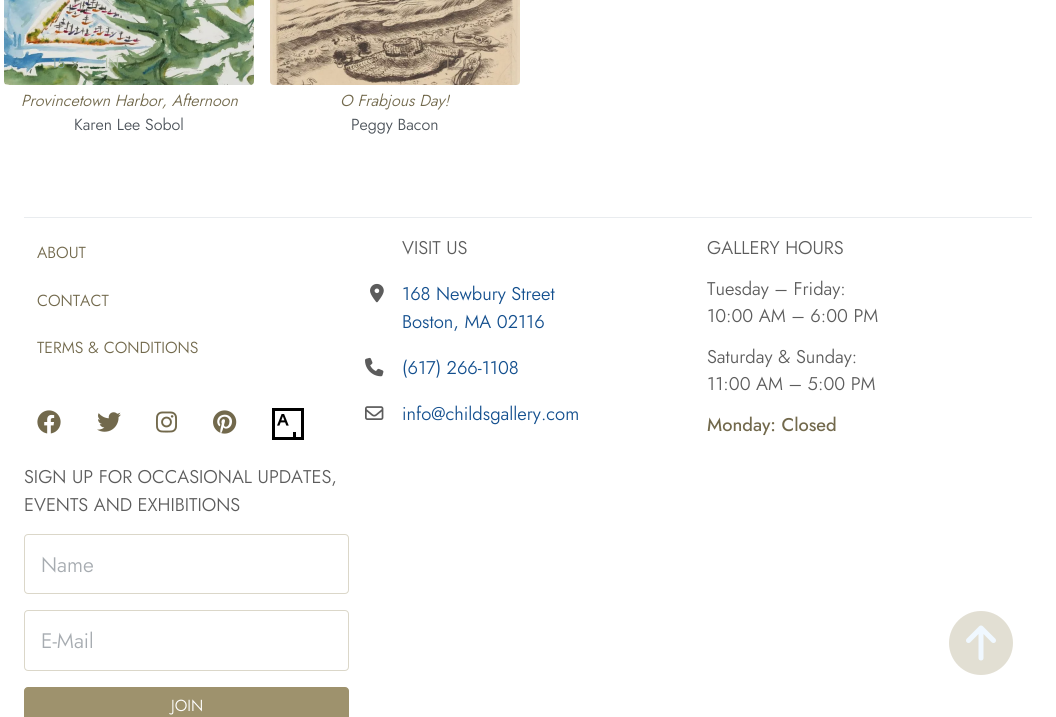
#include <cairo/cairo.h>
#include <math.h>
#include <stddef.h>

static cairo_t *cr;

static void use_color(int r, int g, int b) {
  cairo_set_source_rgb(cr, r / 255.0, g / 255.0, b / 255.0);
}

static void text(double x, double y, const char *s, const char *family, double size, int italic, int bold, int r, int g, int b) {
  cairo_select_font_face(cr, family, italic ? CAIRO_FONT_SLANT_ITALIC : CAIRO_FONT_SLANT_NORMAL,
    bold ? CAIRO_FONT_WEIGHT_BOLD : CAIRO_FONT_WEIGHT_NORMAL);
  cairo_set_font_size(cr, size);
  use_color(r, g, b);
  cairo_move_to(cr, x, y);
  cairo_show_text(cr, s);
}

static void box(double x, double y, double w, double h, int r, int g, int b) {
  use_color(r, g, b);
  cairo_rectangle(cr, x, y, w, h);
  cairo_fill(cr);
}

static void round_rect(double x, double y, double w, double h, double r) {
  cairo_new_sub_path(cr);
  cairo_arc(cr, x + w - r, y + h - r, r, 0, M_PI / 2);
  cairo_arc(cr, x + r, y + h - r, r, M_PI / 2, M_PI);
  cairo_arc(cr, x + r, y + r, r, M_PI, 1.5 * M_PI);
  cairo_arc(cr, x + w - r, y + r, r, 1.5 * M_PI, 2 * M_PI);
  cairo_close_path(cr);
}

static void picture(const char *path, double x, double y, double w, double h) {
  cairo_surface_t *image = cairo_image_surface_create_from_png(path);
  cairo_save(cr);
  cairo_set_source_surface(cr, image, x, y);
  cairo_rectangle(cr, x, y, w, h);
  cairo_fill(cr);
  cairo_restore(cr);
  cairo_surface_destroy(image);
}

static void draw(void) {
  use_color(255, 255, 255);
  cairo_paint(cr);
  picture("img_01.png", 4, 0, 250, 85);
  picture("img_02.png", 270, 0, 250, 85);
  box(24, 217, 1008, 1, 233, 236, 239);
  picture("img_03.png", 37, 410, 24, 24);
  picture("img_04.png", 97, 412, 24, 20);
  picture("img_05.png", 156, 411, 21, 22);
  picture("img_06.png", 213, 410, 24, 24);
  picture("img_07.png", 272, 408, 32, 32);
  picture("img_08.png", 370, 283, 14, 20);
  picture("img_09.png", 365, 357, 19, 20);
  picture("img_10.png", 365, 406, 19, 14);
  round_rect(24.5, 534.5, 324, 59, 3.5);
  use_color(219, 215, 201);
  cairo_set_line_width(cr, 1);
  cairo_stroke(cr);
  round_rect(24.5, 610.5, 324, 60, 3.5);
  cairo_stroke(cr);
  use_color(158, 146, 109);
  round_rect(24.5, 687.5, 324, 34, 3.5);
  cairo_fill_preserve(cr);
  cairo_stroke(cr);
  use_color(226, 223, 211);
  cairo_arc(cr, 981, 643, 32, 0, 2 * M_PI);
  cairo_fill(cr);
  picture("img_11.png", 966, 625, 30, 36);
  text(51, 68, "15", "Jost Light", 14, 0, 0, 130, 159, 154);
  text(71, 68, "×", "Jost Light", 14, 0, 0, 132, 146, 129);
  text(105, 68, "IN.", "Jost Light", 14, 0, 0, 180, 191, 169);
  text(21, 106, "Provincetown Harbor, Afternoon", "Jost Light", 16, 1, 0, 114, 105, 76);
  text(74, 130, "Karen Lee Sobol", "Jost Light", 16, 0, 0, 73, 80, 87);
  text(310, 68, "9", "Jost Light", 14, 0, 0, 158, 137, 116);
  text(336, 68, "6", "Jost Light", 14, 0, 0, 147, 130, 110);
  text(347, 68, "‐", "Liberation Sans", 14, 0, 0, 105, 91, 77);
  text(353, 68, "⁄", "Jost Light", 14, 0, 0, 147, 130, 110);
  text(351, 63, "1", "Jost Light", 11, 0, 0, 164, 146, 125);
  text(374, 68, "IN.", "Jost Light", 14, 0, 0, 158, 137, 116);
  text(432, 68, "$", "Jost Light", 14, 0, 0, 158, 137, 116);
  text(444, 68, "1,200", "Jost Light", 14, 0, 0, 164, 146, 125);
  text(340, 106, "O Frabjous Day!", "Jost Light", 16, 1, 0, 114, 105, 76);
  text(351, 130, "Peggy Bacon", "Jost Light", 16, 0, 0, 73, 80, 87);
  text(37, 258, "ABOUT", "Jost Light", 16, 0, 0, 114, 105, 76);
  text(37, 306, "CONTACT", "Jost Light", 16, 0, 0, 114, 105, 76);
  text(37, 353, "TERMS & CONDITIONS", "Jost Light", 16, 0, 0, 114, 105, 76);
  text(402, 254, "VISIT US", "Jost Light", 18.4, 0, 0, 92, 92, 92);
  text(402, 300, "168 Newbury Street", "Jost Light", 18.4, 0, 0, 19, 79, 142);
  text(402, 328, "Boston, MA 02116", "Jost Light", 18.4, 0, 0, 19, 79, 142);
  text(402, 374, "(617) 266-1108", "Jost Light", 18.4, 0, 0, 19, 79, 142);
  text(402, 420, "info@childsgallery.com", "Jost Light", 18.4, 0, 0, 19, 79, 142);
  text(707, 254, "GALLERY HOURS", "Jost Light", 18.4, 0, 0, 92, 92, 92);
  text(707, 295, "Tuesday – Friday:", "Jost Light", 18.4, 0, 0, 92, 92, 92);
  text(707, 322, "10:00 AM – 6:00 PM", "Jost Light", 18.4, 0, 0, 92, 92, 92);
  text(707, 363, "Saturday & Sunday:", "Jost Light", 18.4, 0, 0, 92, 92, 92);
  text(707, 390, "11:00 AM – 5:00 PM", "Jost Light", 18.4, 0, 0, 92, 92, 92);
  text(707, 431, "Monday: Closed", "Jost", 18.4, 0, 0, 114, 105, 76);
  text(24, 483, "SIGN UP FOR OCCASIONAL UPDATES,", "Jost Light", 18.4, 0, 0, 92, 92, 92);
  text(24, 511, "EVENTS AND EXHIBITIONS", "Jost Light", 18.4, 0, 0, 92, 92, 92);
  text(41, 572, "Name", "Jost Light", 21, 0, 0, 167, 172, 177);
  text(41, 648, "E-Mail", "Jost Light", 21, 0, 0, 167, 172, 177);
  text(171, 711, "JOIN", "Jost Light", 16, 0, 0, 255, 255, 255);
}

int main(void) {
  cairo_surface_t *surface = cairo_image_surface_create(CAIRO_FORMAT_RGB24, 1056, 717);
  cr = cairo_create(surface);
  cairo_font_options_t *options = cairo_font_options_create();
  cairo_font_options_set_hint_metrics(options, CAIRO_HINT_METRICS_OFF);
  cairo_font_options_set_hint_style(options, CAIRO_HINT_STYLE_NONE);
  cairo_set_font_options(cr, options);
  cairo_set_miter_limit(cr, 4);
  draw();
  cairo_surface_write_to_png(surface, "out.png");
  cairo_font_options_destroy(options);
  cairo_destroy(cr);
  cairo_surface_destroy(surface);
  return 0;
}
